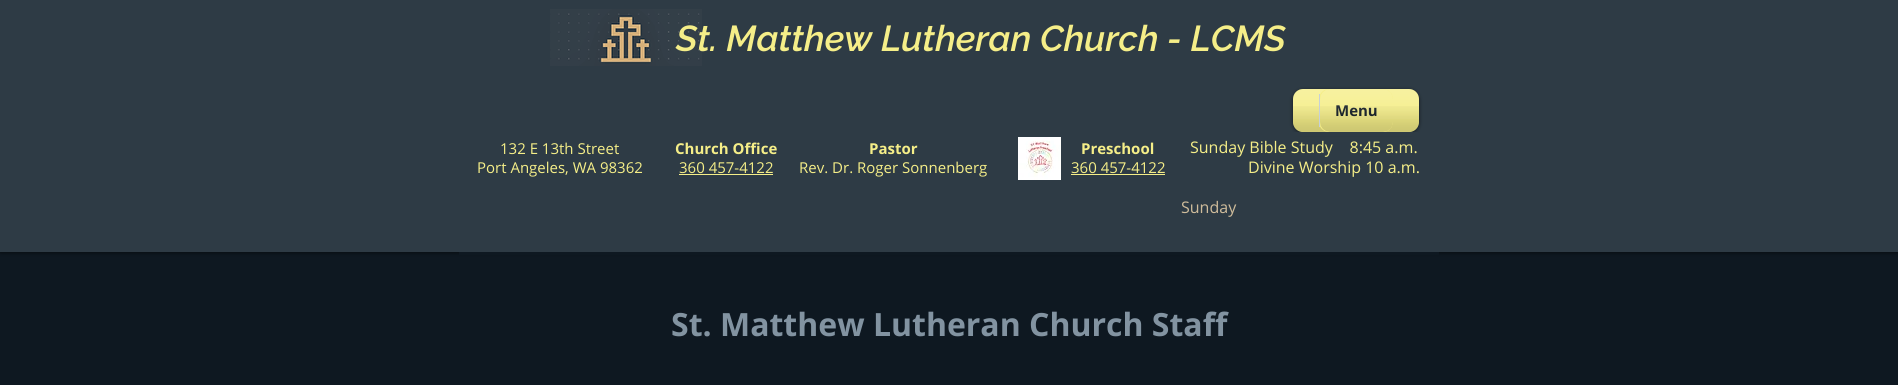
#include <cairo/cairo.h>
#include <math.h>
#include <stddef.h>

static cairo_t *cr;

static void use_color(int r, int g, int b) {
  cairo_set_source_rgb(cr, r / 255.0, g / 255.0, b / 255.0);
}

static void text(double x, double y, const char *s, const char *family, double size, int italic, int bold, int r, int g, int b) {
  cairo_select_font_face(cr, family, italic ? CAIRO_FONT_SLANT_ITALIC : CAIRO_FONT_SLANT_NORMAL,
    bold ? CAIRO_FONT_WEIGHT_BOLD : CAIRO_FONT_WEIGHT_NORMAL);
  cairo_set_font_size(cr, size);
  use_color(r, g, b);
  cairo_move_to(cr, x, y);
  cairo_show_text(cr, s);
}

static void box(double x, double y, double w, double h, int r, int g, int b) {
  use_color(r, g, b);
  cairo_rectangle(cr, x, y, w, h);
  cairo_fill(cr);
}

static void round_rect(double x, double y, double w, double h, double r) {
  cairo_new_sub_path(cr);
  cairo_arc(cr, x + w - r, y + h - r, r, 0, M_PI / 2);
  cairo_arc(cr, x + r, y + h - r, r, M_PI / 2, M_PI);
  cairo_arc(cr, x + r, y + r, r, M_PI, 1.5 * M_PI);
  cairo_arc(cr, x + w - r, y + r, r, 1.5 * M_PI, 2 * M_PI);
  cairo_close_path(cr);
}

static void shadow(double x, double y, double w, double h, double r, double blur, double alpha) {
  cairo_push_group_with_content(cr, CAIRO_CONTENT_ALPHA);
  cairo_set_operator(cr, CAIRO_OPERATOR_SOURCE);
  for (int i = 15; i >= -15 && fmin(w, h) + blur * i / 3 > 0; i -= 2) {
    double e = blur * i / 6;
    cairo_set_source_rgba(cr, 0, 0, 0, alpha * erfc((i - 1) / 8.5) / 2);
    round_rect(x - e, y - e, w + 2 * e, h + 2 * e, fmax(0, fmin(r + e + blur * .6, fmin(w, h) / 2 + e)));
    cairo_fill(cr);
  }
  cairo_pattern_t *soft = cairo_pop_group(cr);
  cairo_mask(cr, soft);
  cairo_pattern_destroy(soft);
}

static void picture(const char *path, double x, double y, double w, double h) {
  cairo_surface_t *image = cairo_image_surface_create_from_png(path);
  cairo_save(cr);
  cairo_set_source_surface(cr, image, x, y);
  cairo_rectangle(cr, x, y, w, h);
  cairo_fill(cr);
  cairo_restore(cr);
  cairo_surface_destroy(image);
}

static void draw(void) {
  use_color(14, 24, 33);
  cairo_paint(cr);
  use_color(0, 0, 0);
  shadow(0, 0, 1898, 252, 0, 2.5, 0.7);
  box(0, 0, 1898, 252, 46, 59, 69);
  picture("img_01.png", 550, 9, 152, 57);
  use_color(0, 0, 0);
  shadow(1293, 90, 126, 43, 10, 2, 0.6);
  use_color(245, 238, 136);
  round_rect(1293, 89, 126, 43, 10);
  cairo_fill(cr);
  picture("img_02.png", 1293, 89, 126, 30);
  picture("img_03.png", 1293, 106, 126, 26);
  round_rect(1319, 89, 74, 43, 10);
  cairo_fill(cr);
  box(1319, 94, 1, 33, 197, 208, 217);
  box(1294, 132, 124, 4, 46, 59, 69);
  box(679, 174, 94, 1, 245, 238, 136);
  picture("img_06.png", 1018, 137, 43, 43);
  box(1071, 174, 94, 1, 245, 238, 136);
  box(459, 252, 980, 3, 14, 24, 33);
  text(676, 51, "St. Matthew Lutheran Church - LCMS", "Raleway SemiBold", 36, 1, 0, 245, 238, 136);
  text(1335, 116, "Menu", "Open Sans", 15, 0, 1, 14, 24, 33);
  picture("img_04.png", 1320, 89, 73, 30);
  picture("img_05.png", 1320, 106, 73, 26);
  text(500, 154, "132 E 13th Street", "Open Sans", 15, 0, 0, 245, 238, 136);
  text(477, 173, "Port Angeles, WA 98362", "Open Sans", 15, 0, 0, 245, 238, 136);
  text(675, 154, "Church Office", "Open Sans", 15, 0, 1, 245, 238, 136);
  text(679, 173, "360 457-4122", "Open Sans", 15, 0, 0, 245, 238, 136);
  text(869, 154, "Pastor", "Open Sans", 15, 0, 1, 245, 238, 136);
  text(799, 173, "Rev. Dr. Roger Sonnenberg", "Open Sans", 15, 0, 0, 245, 238, 136);
  text(1081, 154, "Preschool", "Open Sans", 15, 0, 1, 245, 238, 136);
  text(1071, 173, "360 457-4122", "Open Sans", 15, 0, 0, 245, 238, 136);
  text(1190, 153, "Sunday Bible Study    8:45 a.m.", "Open Sans", 16, 0, 0, 245, 238, 136);
  text(1248, 173, "Divine Worship 10 a.m.", "Open Sans", 16, 0, 0, 245, 238, 136);
  text(1181, 213, "Sunday", "Open Sans", 16, 0, 0, 207, 188, 155);
  text(671, 336, "St. Matthew Lutheran Church Staff", "Open Sans", 32, 0, 1, 130, 147, 161);
}

int main(void) {
  cairo_surface_t *surface = cairo_image_surface_create(CAIRO_FORMAT_RGB24, 1898, 385);
  cr = cairo_create(surface);
  cairo_font_options_t *options = cairo_font_options_create();
  cairo_font_options_set_hint_metrics(options, CAIRO_HINT_METRICS_OFF);
  cairo_font_options_set_hint_style(options, CAIRO_HINT_STYLE_NONE);
  cairo_set_font_options(cr, options);
  cairo_set_miter_limit(cr, 4);
  draw();
  cairo_surface_write_to_png(surface, "out.png");
  cairo_font_options_destroy(options);
  cairo_destroy(cr);
  cairo_surface_destroy(surface);
  return 0;
}
